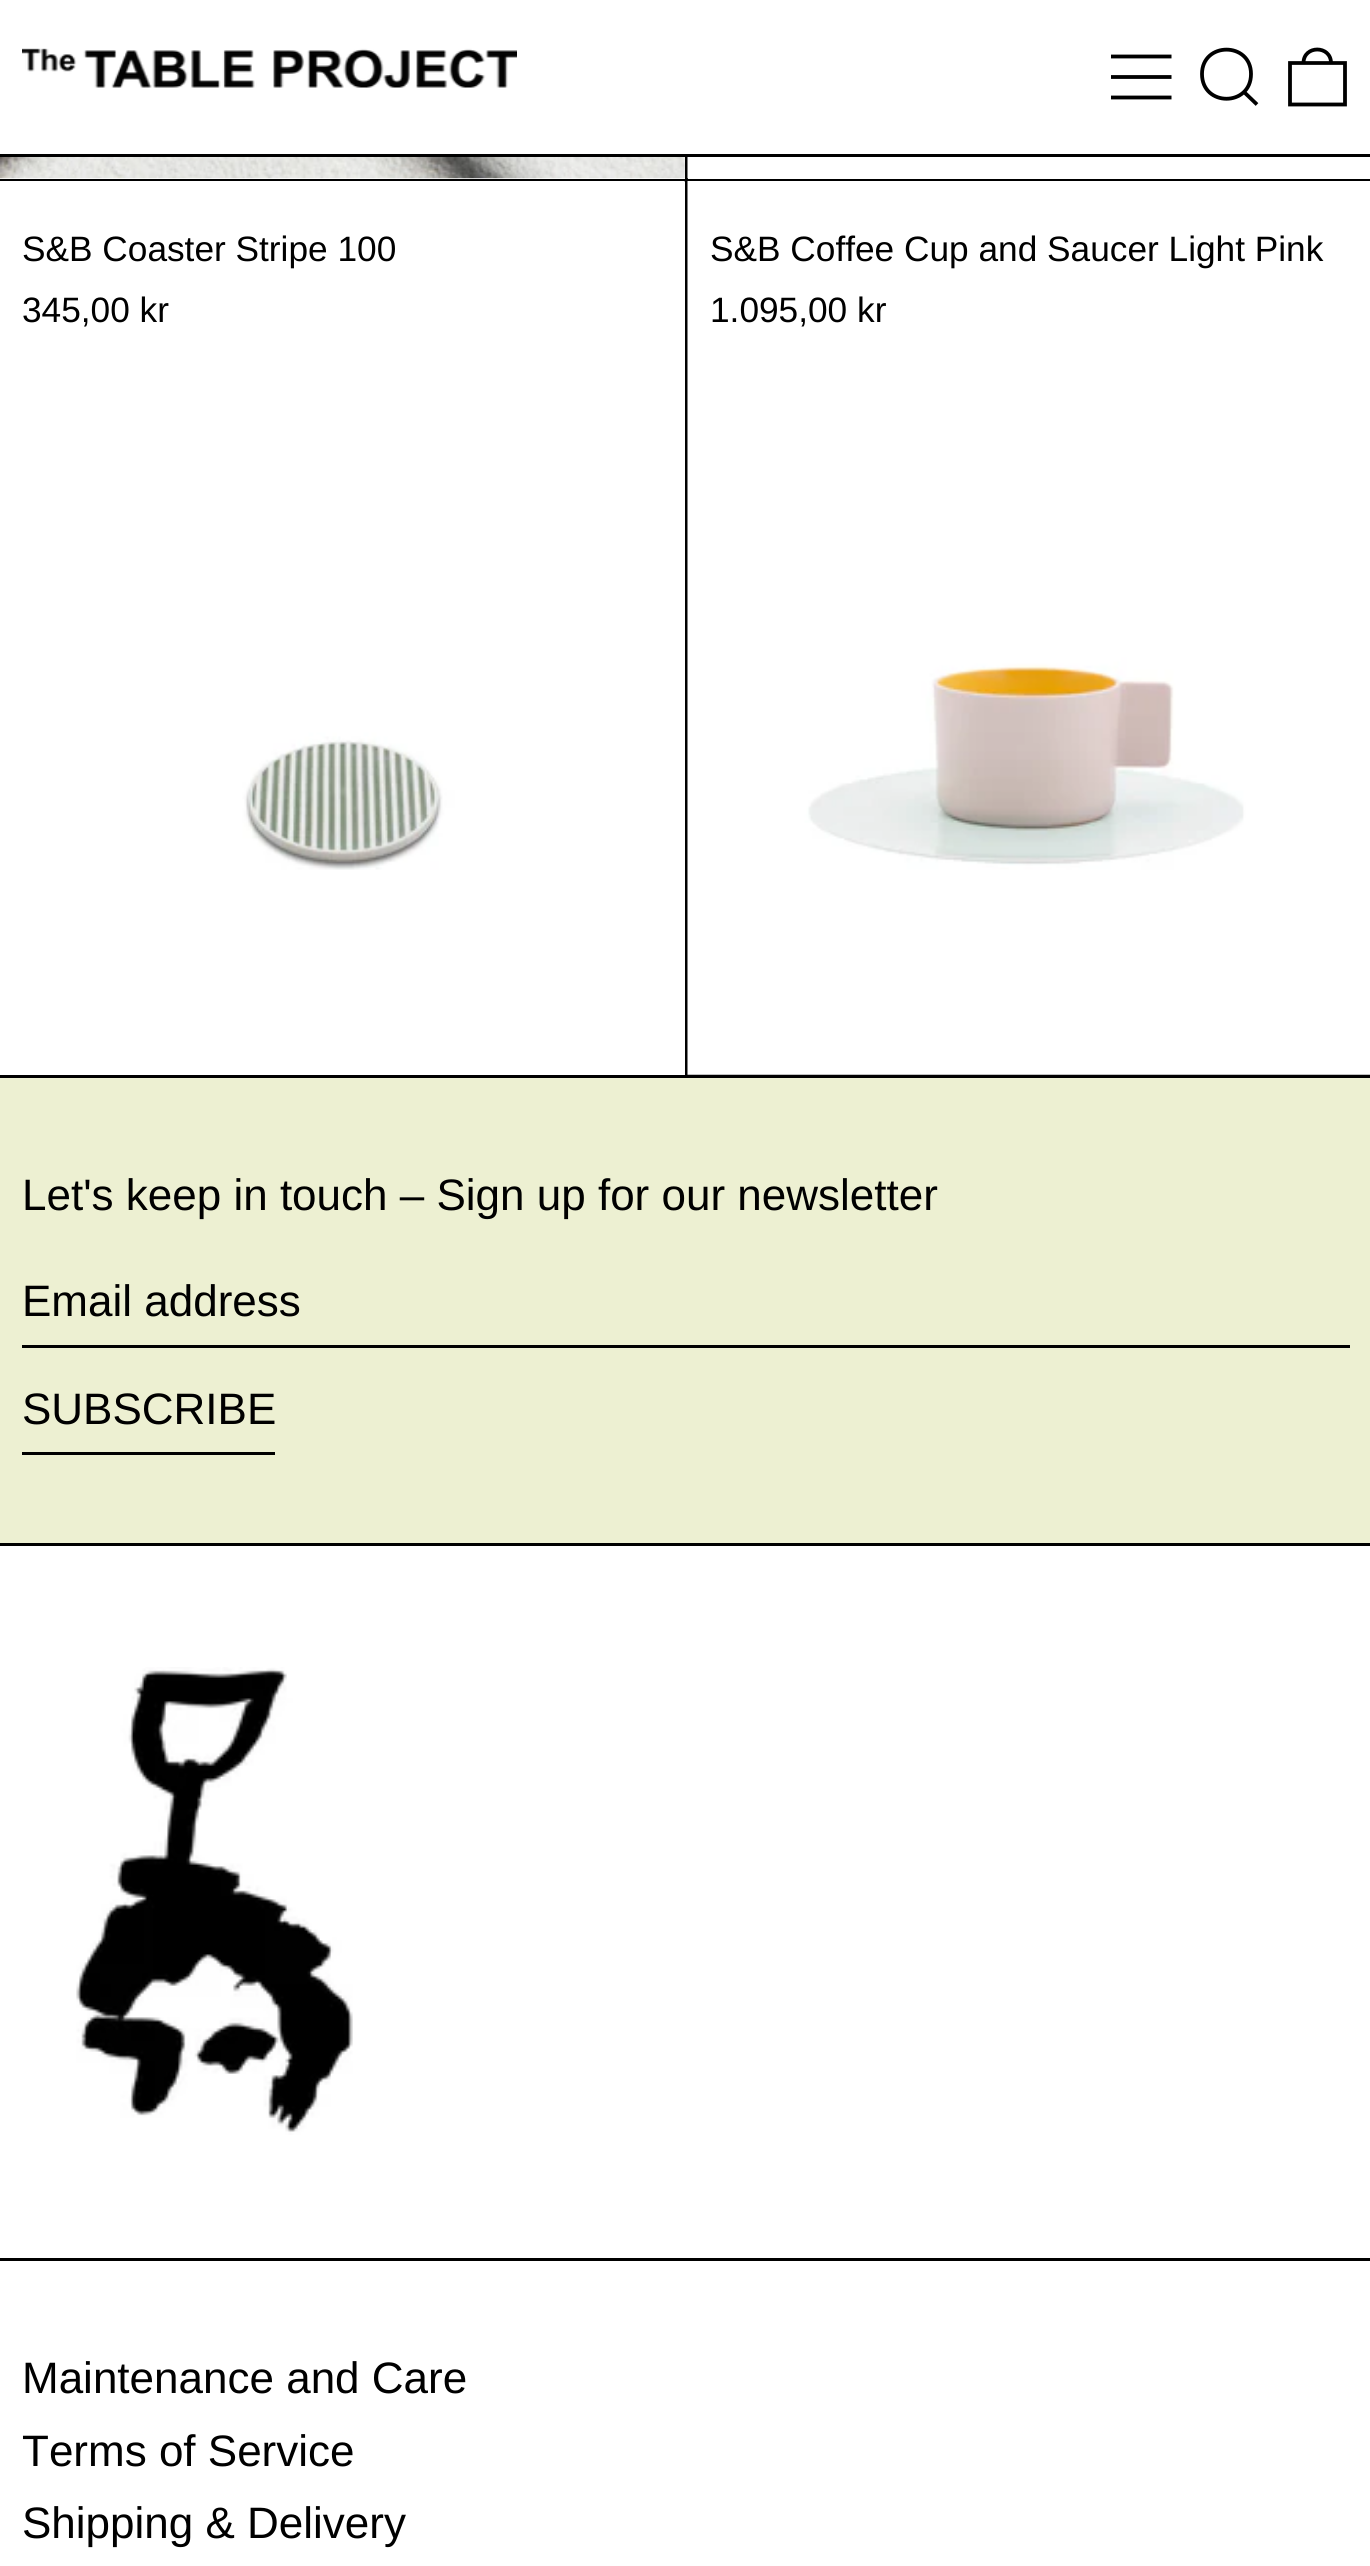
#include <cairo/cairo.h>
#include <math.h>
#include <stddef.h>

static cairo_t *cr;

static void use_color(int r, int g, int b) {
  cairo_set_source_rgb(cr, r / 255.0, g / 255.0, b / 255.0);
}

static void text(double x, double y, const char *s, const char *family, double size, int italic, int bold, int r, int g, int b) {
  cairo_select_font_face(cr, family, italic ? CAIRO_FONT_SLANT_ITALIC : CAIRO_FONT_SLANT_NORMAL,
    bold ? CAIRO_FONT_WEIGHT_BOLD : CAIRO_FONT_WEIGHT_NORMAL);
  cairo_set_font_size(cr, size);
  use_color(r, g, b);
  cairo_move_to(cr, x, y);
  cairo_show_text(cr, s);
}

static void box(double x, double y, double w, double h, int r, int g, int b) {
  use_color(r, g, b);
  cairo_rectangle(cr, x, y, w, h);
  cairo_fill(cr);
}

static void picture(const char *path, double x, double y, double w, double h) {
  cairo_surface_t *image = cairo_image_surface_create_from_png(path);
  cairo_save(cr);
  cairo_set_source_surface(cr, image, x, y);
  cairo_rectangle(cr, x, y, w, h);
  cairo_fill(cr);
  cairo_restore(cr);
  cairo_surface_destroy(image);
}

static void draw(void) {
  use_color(0, 0, 0);
  cairo_paint(cr);
  box(0, 0, 1370, 154, 255, 255, 255);
  picture("img_01.png", 22, 48, 495, 40);
  cairo_new_path(cr);
  cairo_move_to(cr, 1111, 56.5);
  cairo_line_to(cr, 1171.5, 56.5);
  cairo_move_to(cr, 1111, 77);
  cairo_line_to(cr, 1171.5, 77);
  cairo_move_to(cr, 1111, 97.5);
  cairo_line_to(cr, 1171.5, 97.5);
  use_color(0, 0, 0);
  cairo_set_line_width(cr, 3.8);
  cairo_stroke(cr);
  cairo_new_path(cr);
  cairo_move_to(cr, 1202, 74);
  cairo_curve_to(cr, 1202, 107, 1251, 107, 1251, 74);
  cairo_curve_to(cr, 1251, 41.5, 1202, 41.5, 1202, 74);
  cairo_close_path(cr);
  cairo_move_to(cr, 1244, 92);
  cairo_line_to(cr, 1257, 104.5);
  cairo_stroke(cr);
  cairo_new_path(cr);
  cairo_move_to(cr, 1290, 63);
  cairo_line_to(cr, 1345, 63);
  cairo_line_to(cr, 1345, 104.5);
  cairo_line_to(cr, 1290, 104.5);
  cairo_close_path(cr);
  cairo_move_to(cr, 1331, 63);
  cairo_curve_to(cr, 1331, 45, 1303.5, 45, 1303.5, 63);
  cairo_stroke(cr);
  box(0, 157, 685, 22, 255, 255, 255);
  picture("img_02.png", 0, 157, 685, 22);
  box(688, 157, 682, 22, 255, 255, 255);
  picture("img_03.png", 687, 157, 1, 22);
  box(0, 182, 685, 893, 255, 255, 255);
  picture("img_04.png", 0, 181, 685, 689);
  picture("img_05.png", 687, 181, 683, 894);
  box(0, 1078, 1370, 465, 237, 240, 210);
  box(22, 1345, 1328, 3, 0, 0, 0);
  box(22, 1452, 253, 3, 0, 0, 0);
  box(0, 1546, 1370, 712, 255, 255, 255);
  picture("img_06.png", 76, 1667, 277, 468);
  box(0, 2261, 1370, 305, 255, 255, 255);
  text(22, 261, "S&B Coaster Stripe 100", "Liberation Sans", 35.25, 0, 0, 0, 0, 0);
  text(22, 322, "345,00 kr", "Liberation Sans", 35.25, 0, 0, 0, 0, 0);
  text(710, 261, "S&B Coffee Cup and Saucer Light Pink", "Liberation Sans", 35.25, 0, 0, 0, 0, 0);
  text(710, 322, "1.095,00 kr", "Liberation Sans", 35.25, 0, 0, 0, 0, 0);
  text(22, 1210, "Let's keep in touch – Sign up for our newsletter", "Liberation Sans", 44, 0, 0, 0, 0, 0);
  text(22, 1316, "Email address", "Liberation Sans", 44, 0, 0, 0, 0, 0);
  text(22, 1424, "SUBSCRIBE", "Liberation Sans", 44, 0, 0, 0, 0, 0);
  text(22, 2393, "Maintenance and Care", "Liberation Sans", 44, 0, 0, 0, 0, 0);
  text(22, 2466, "Terms of Service", "Liberation Sans", 44, 0, 0, 0, 0, 0);
  text(22, 2538, "Shipping & Delivery", "Liberation Sans", 44, 0, 0, 0, 0, 0);
}

int main(void) {
  cairo_surface_t *surface = cairo_image_surface_create(CAIRO_FORMAT_RGB24, 1370, 2566);
  cr = cairo_create(surface);
  cairo_font_options_t *options = cairo_font_options_create();
  cairo_font_options_set_hint_metrics(options, CAIRO_HINT_METRICS_OFF);
  cairo_font_options_set_hint_style(options, CAIRO_HINT_STYLE_NONE);
  cairo_set_font_options(cr, options);
  cairo_set_miter_limit(cr, 4);
  draw();
  cairo_surface_write_to_png(surface, "out.png");
  cairo_font_options_destroy(options);
  cairo_destroy(cr);
  cairo_surface_destroy(surface);
  return 0;
}
